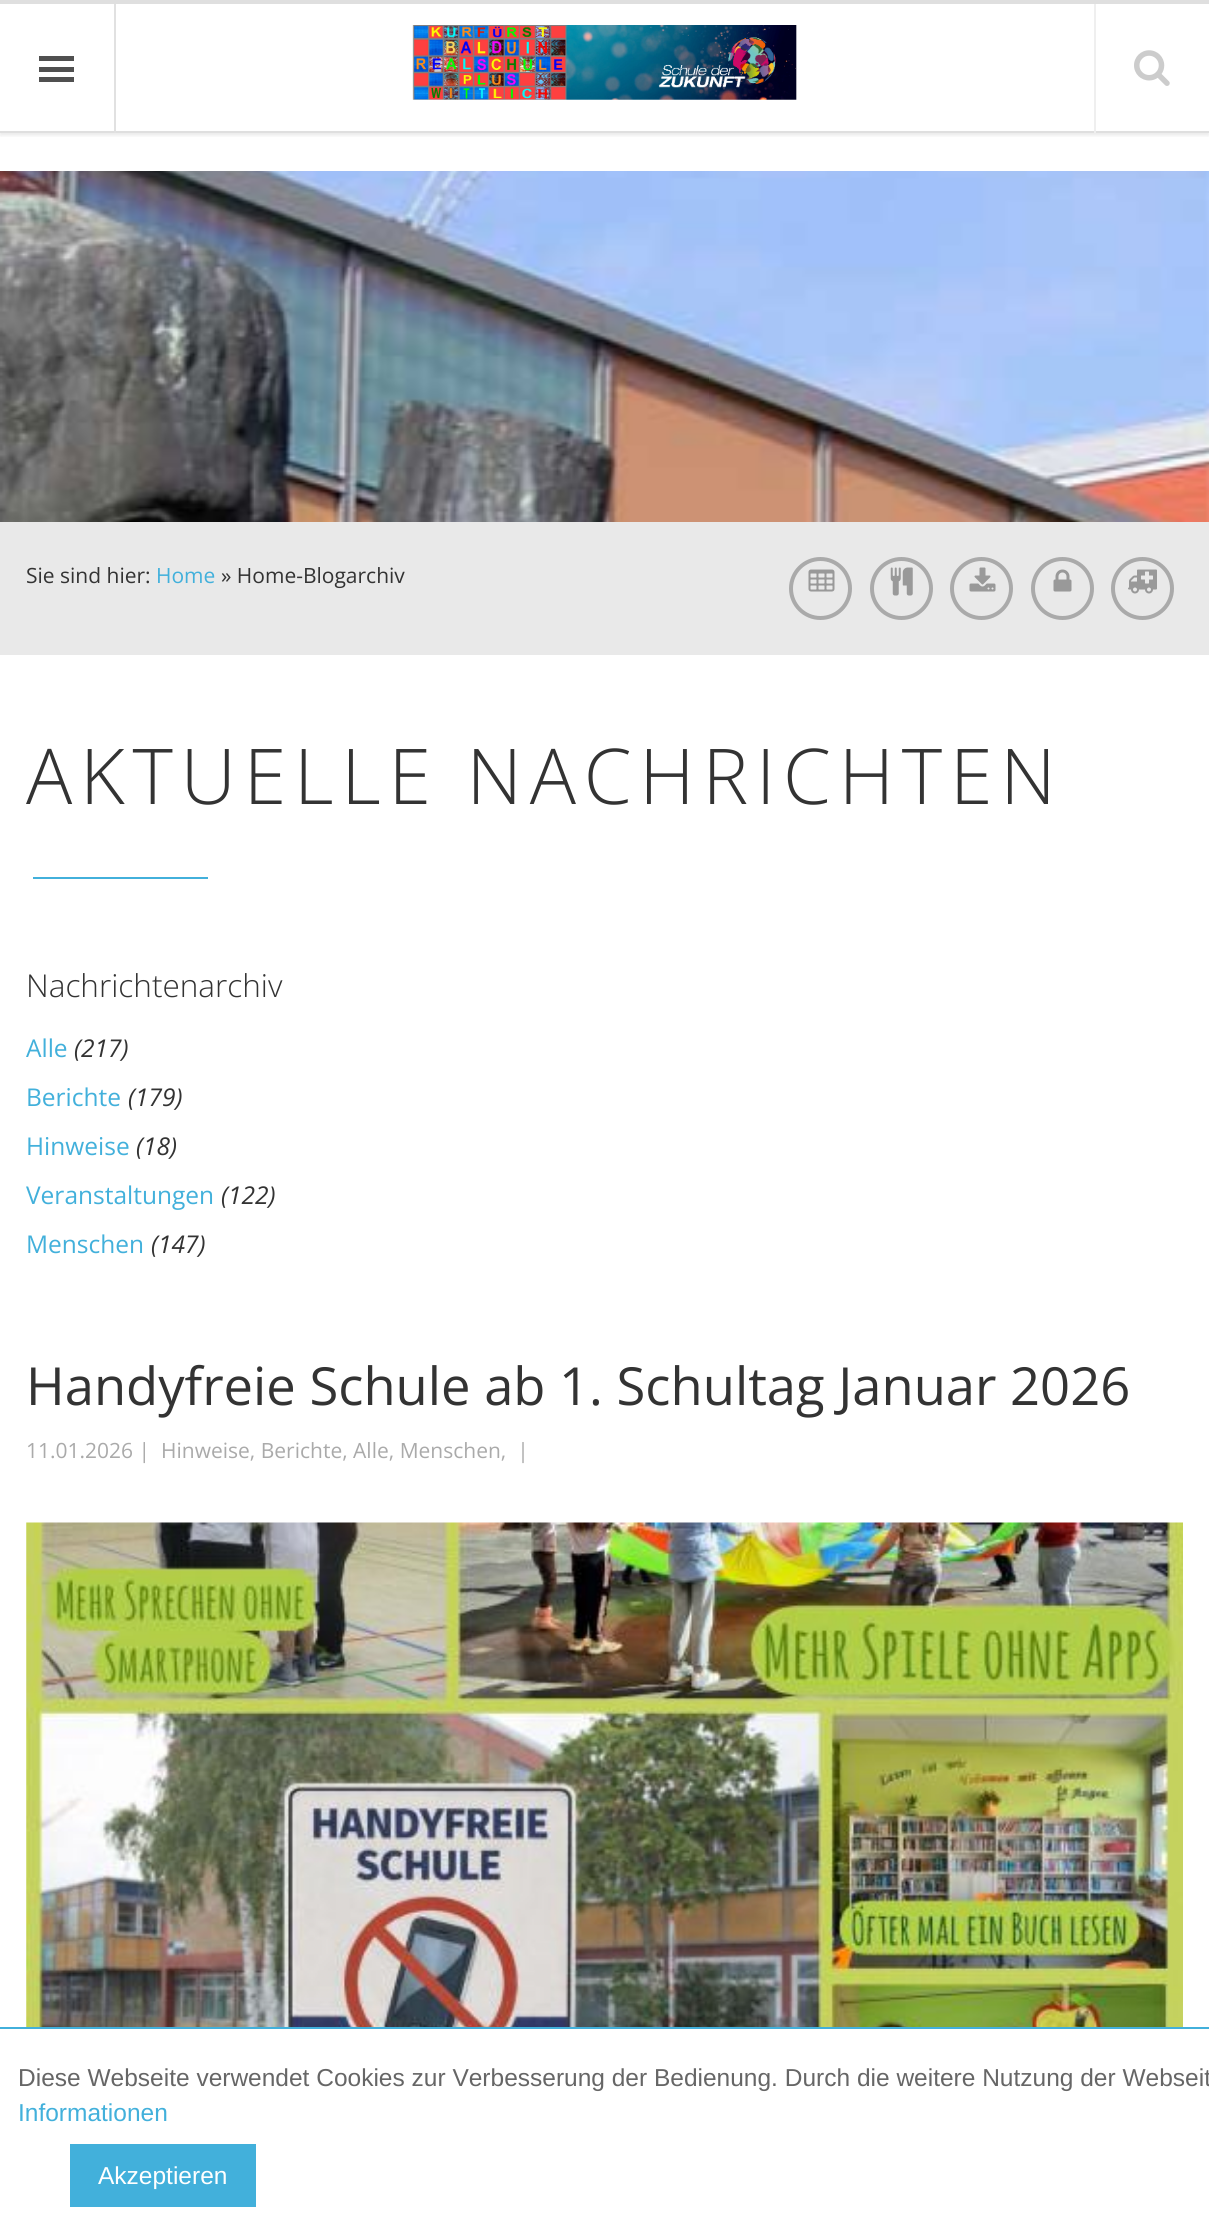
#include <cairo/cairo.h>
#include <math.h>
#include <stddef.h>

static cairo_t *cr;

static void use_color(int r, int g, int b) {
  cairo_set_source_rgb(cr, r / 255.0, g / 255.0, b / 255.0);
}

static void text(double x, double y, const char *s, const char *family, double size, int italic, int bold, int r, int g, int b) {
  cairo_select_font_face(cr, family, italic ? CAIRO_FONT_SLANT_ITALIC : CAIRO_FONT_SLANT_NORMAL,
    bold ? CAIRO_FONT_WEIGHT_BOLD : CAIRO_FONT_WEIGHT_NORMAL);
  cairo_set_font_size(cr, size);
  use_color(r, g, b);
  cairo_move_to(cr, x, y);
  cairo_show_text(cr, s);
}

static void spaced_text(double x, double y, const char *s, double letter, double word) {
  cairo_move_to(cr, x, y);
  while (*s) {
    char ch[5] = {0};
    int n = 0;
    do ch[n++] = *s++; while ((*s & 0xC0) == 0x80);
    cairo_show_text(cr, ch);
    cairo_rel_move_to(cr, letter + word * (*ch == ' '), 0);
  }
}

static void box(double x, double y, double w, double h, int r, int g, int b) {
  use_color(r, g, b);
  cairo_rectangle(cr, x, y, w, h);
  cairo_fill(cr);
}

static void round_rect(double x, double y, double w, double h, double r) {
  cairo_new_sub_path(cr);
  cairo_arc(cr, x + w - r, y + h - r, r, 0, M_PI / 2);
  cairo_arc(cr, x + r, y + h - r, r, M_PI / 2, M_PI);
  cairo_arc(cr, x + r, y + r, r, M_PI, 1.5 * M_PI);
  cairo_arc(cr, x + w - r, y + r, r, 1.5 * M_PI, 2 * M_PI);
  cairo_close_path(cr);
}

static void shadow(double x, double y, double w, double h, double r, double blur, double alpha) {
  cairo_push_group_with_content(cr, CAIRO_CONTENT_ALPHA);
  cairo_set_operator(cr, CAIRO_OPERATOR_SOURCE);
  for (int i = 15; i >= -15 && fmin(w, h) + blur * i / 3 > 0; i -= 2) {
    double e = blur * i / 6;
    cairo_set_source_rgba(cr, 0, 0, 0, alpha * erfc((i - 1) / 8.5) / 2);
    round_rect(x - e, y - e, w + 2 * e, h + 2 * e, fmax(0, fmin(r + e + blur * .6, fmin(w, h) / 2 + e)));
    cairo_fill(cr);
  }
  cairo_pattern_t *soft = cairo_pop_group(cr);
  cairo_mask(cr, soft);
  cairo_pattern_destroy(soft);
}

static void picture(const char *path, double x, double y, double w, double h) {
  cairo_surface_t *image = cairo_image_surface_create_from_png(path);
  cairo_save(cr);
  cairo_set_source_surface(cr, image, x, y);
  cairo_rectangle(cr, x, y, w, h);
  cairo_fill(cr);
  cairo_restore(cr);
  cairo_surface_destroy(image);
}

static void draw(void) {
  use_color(255, 255, 255);
  cairo_paint(cr);
  cairo_save(cr);
  cairo_rectangle(cr, 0, 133, 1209, 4);
  cairo_clip(cr);
  use_color(0, 0, 0);
  shadow(0, 2, 1209, 133, 0, 2.5, 0.1);
  cairo_restore(cr);
  box(0, 0, 1209, 4, 223, 223, 223);
  box(0, 131, 1209, 2, 223, 223, 223);
  box(114, 4, 2, 129, 225, 225, 225);
  box(39, 77, 35, 5, 80, 80, 80);
  box(39, 67, 35, 5, 80, 80, 80);
  box(39, 56, 35, 5, 80, 80, 80);
  picture("img_01.png", 412, 25, 385, 75);
  box(1094, 4, 2, 129, 239, 239, 239);
  picture("img_02.png", 1134, 50, 36, 36);
  picture("img_03.png", 0, 171, 1209, 351);
  box(0, 522, 1209, 133, 233, 233, 233);
  cairo_arc(cr, 820.5, 588.5, 29.5, 0, 2 * M_PI);
  use_color(170, 170, 170);
  cairo_set_line_width(cr, 4);
  cairo_stroke(cr);
  picture("img_04.png", 808, 569, 27, 23);
  cairo_arc(cr, 901.5, 588.5, 29.5, 0, 2 * M_PI);
  cairo_stroke(cr);
  picture("img_05.png", 890, 567, 23, 29);
  cairo_arc(cr, 981.5, 588.5, 29.5, 0, 2 * M_PI);
  cairo_stroke(cr);
  picture("img_06.png", 969, 567, 27, 25);
  cairo_arc(cr, 1062.5, 588.5, 29.5, 0, 2 * M_PI);
  cairo_stroke(cr);
  picture("img_07.png", 1053, 569, 19, 23);
  cairo_arc(cr, 1142.5, 588.5, 29.5, 0, 2 * M_PI);
  cairo_stroke(cr);
  picture("img_08.png", 1128, 569, 29, 25);
  box(33, 877, 175, 2, 66, 176, 219);
  picture("img_09.png", 26, 1522, 1157, 505);
  box(0, 2027, 1209, 2, 66, 176, 219);
  box(70, 2144, 186, 63, 66, 176, 219);
  text(26, 583, "Sie sind hier:", "Open Sans", 21, 0, 0, 51, 51, 51);
  text(156, 583, "Home", "Open Sans", 21, 0, 0, 66, 176, 219);
  text(221, 583, "» Home-Blogarchiv", "Open Sans", 21, 0, 0, 51, 51, 51);
  cairo_select_font_face(cr, "Open Sans Light", CAIRO_FONT_SLANT_NORMAL, CAIRO_FONT_WEIGHT_NORMAL);
  cairo_set_font_size(cr, 77);
  spaced_text(26, 804, "AKTUELLE NACHRICHTEN", 7.75, 0);
  text(26, 997, "Nachrichtenarchiv", "Open Sans Light", 31.5, 0, 0, 51, 51, 51);
  text(26, 1057, "Alle", "Open Sans", 24.5, 0, 0, 66, 176, 219);
  text(74, 1057, "(217)", "Open Sans", 24.5, 1, 0, 51, 51, 51);
  text(26, 1106, "Berichte", "Open Sans", 24.5, 0, 0, 66, 176, 219);
  text(128, 1106, "(179)", "Open Sans", 24.5, 1, 0, 51, 51, 51);
  text(26, 1155, "Hinweise", "Open Sans", 24.5, 0, 0, 66, 176, 219);
  text(136, 1155, "(18)", "Open Sans", 24.5, 1, 0, 51, 51, 51);
  text(26, 1204, "Veranstaltungen", "Open Sans", 24.5, 0, 0, 66, 176, 219);
  text(221, 1204, "(122)", "Open Sans", 24.5, 1, 0, 51, 51, 51);
  text(26, 1253, "Menschen", "Open Sans", 24.5, 0, 0, 66, 176, 219);
  text(151, 1253, "(147)", "Open Sans", 24.5, 1, 0, 51, 51, 51);
  text(26, 1405, "Handyfreie Schule ab 1. Schultag Januar 2026", "Open Sans", 52.5, 0, 0, 51, 51, 51);
  text(26, 1458, "11.01.2026 |", "Open Sans", 21, 0, 0, 170, 170, 170);
  text(161, 1458, "Hinweise, Berichte, Alle, Menschen,  |", "Open Sans", 21, 0, 0, 170, 170, 170);
  text(18, 2086, "Diese Webseite verwendet Cookies zur Verbesserung der Bedienung. Durch die weitere Nutzung der Webseit", "Liberation Sans", 24.5, 0, 0, 102, 102, 102);
  text(18, 2121, "Informationen", "Liberation Sans", 24.5, 0, 0, 66, 176, 219);
  text(98, 2184, "Akzeptieren", "Liberation Sans", 24.5, 0, 0, 255, 255, 255);
}

int main(void) {
  cairo_surface_t *surface = cairo_image_surface_create(CAIRO_FORMAT_RGB24, 1209, 2223);
  cr = cairo_create(surface);
  cairo_font_options_t *options = cairo_font_options_create();
  cairo_font_options_set_hint_metrics(options, CAIRO_HINT_METRICS_OFF);
  cairo_font_options_set_hint_style(options, CAIRO_HINT_STYLE_NONE);
  cairo_set_font_options(cr, options);
  cairo_set_miter_limit(cr, 4);
  draw();
  cairo_surface_write_to_png(surface, "out.png");
  cairo_font_options_destroy(options);
  cairo_destroy(cr);
  cairo_surface_destroy(surface);
  return 0;
}
